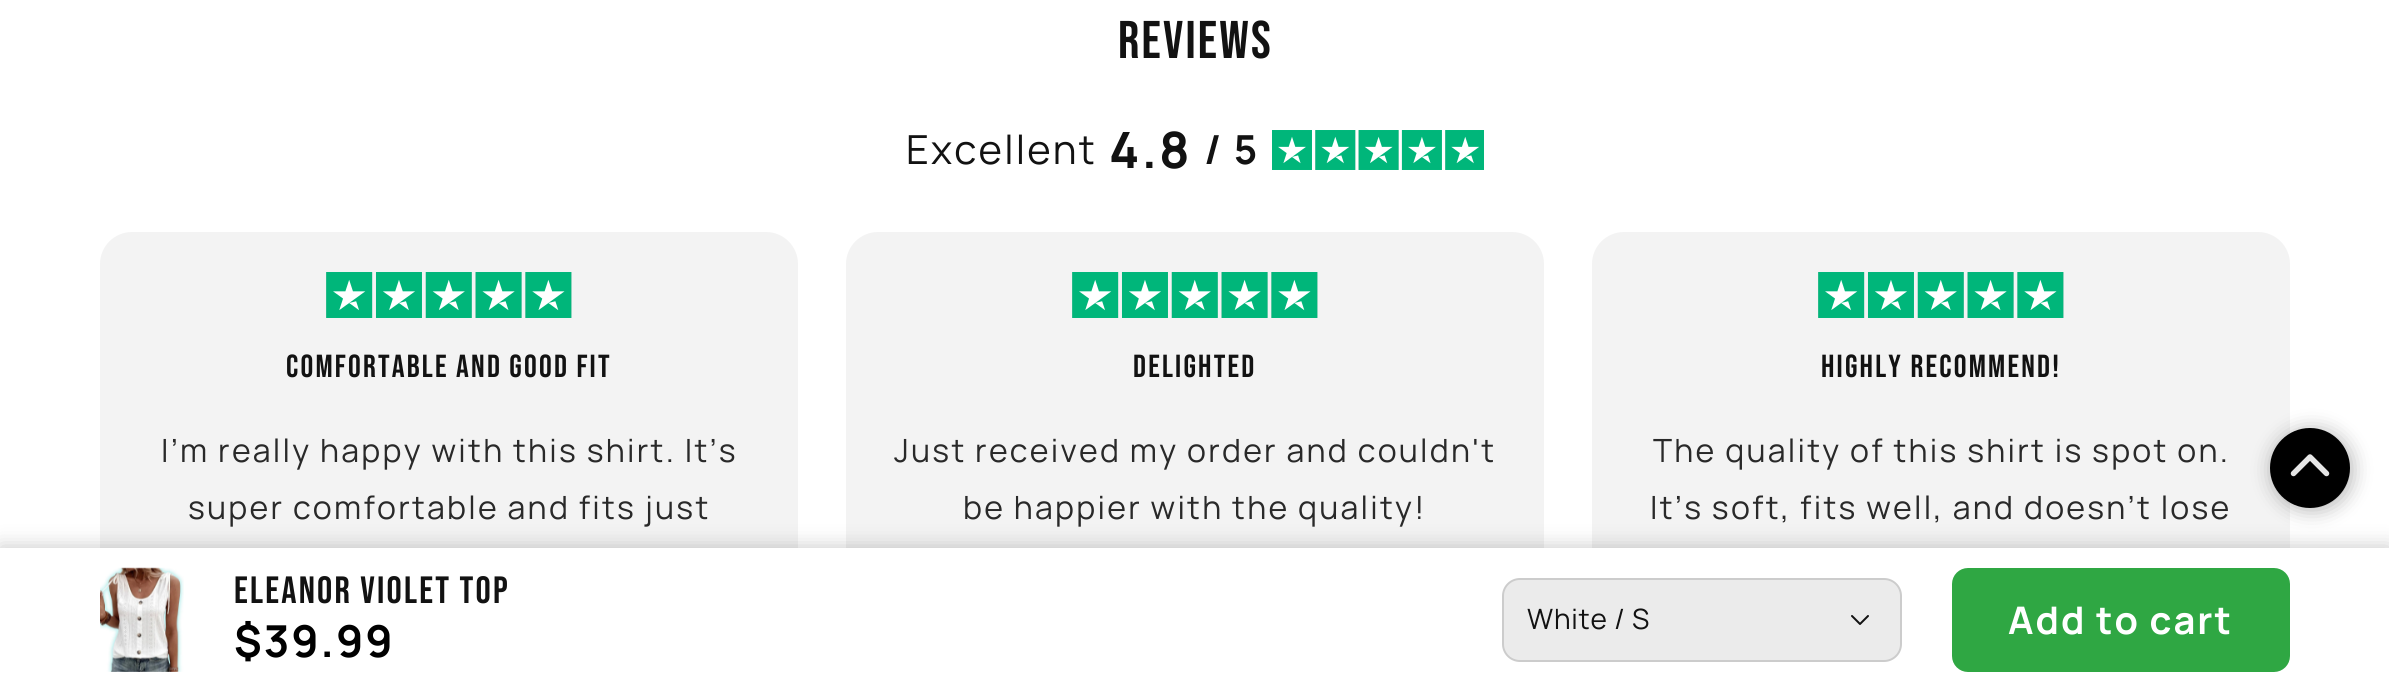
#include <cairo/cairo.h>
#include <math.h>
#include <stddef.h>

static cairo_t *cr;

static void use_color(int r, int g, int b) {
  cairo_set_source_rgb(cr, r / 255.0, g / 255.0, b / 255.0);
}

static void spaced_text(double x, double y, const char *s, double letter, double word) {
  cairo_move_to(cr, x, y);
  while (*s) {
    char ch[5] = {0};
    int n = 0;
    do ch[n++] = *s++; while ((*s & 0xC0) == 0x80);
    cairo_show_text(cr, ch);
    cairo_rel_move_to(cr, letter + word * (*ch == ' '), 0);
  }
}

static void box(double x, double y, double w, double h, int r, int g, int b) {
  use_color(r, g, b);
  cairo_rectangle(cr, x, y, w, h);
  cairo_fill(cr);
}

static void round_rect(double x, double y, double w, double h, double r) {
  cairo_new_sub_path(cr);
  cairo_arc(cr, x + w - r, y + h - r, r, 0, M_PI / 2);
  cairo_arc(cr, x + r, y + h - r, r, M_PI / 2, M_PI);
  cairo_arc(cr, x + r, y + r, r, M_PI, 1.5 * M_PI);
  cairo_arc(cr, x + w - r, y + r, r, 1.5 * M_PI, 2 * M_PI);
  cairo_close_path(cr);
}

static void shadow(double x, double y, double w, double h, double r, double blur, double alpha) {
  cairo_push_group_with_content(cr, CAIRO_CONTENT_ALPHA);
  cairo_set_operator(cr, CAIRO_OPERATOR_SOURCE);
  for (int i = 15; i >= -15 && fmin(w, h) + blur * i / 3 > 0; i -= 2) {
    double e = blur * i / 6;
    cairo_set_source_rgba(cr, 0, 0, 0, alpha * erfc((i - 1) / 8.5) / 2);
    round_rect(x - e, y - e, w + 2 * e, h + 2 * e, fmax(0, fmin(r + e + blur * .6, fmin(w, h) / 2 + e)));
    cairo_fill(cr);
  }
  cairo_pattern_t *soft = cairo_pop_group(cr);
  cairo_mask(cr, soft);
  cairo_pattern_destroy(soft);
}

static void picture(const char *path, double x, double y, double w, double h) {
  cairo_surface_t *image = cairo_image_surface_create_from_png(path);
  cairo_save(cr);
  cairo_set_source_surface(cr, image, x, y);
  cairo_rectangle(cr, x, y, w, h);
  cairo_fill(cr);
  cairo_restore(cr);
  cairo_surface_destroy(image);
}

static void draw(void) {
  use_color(255, 255, 255);
  cairo_paint(cr);
  picture("img_01.png", 1272, 130, 212, 40);
  picture("img_02.png", 1272, 130, 212, 40);
  use_color(243, 243, 243);
  round_rect(100, 232, 698, 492, 32);
  cairo_fill(cr);
  picture("img_03.png", 326, 272, 246, 46);
  picture("img_04.png", 326, 272, 246, 46);
  round_rect(846, 232, 698, 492, 32);
  cairo_fill(cr);
  picture("img_03.png", 1072, 272, 246, 46);
  picture("img_04.png", 1072, 272, 246, 46);
  round_rect(1592, 232, 698, 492, 32);
  cairo_fill(cr);
  picture("img_03.png", 1818, 272, 246, 46);
  picture("img_04.png", 1818, 272, 246, 46);
  use_color(0, 0, 0);
  shadow(0, 546, 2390, 144, 0, 10, 0.2);
  box(0, 548, 2389, 144, 255, 255, 255);
  picture("img_05.png", 100, 567, 84, 105);
  use_color(235, 235, 235);
  round_rect(1504, 580, 396, 80, 16);
  cairo_fill(cr);
  picture("img_06.png", 1851, 615, 18, 10);
  round_rect(1503, 579, 398, 82, 17);
  cairo_set_source_rgba(cr, 0, 0, 0, 0.2);
  cairo_stroke(cr);
  use_color(47, 167, 67);
  round_rect(1954, 570, 334, 100, 14);
  cairo_fill_preserve(cr);
  cairo_set_line_width(cr, 4);
  cairo_stroke(cr);
  use_color(0, 0, 0);
  shadow(2272, 430, 80, 80, 40, 10, 0.3);
  use_color(0, 0, 0);
  cairo_arc(cr, 2310, 468, 40, 0, 2 * M_PI);
  cairo_fill(cr);
  picture("img_07.png", 2290, 454, 40, 23);
  cairo_select_font_face(cr, "Bebas Neue", CAIRO_FONT_SLANT_NORMAL, CAIRO_FONT_WEIGHT_NORMAL);
  cairo_set_font_size(cr, 53);
  use_color(18, 18, 18);
  spaced_text(1118, 58, "Reviews", 2.2, 0);
  cairo_select_font_face(cr, "Manrope", CAIRO_FONT_SLANT_NORMAL, CAIRO_FONT_WEIGHT_NORMAL);
  cairo_set_font_size(cr, 40);
  spaced_text(906, 164, "Excellent", 2.2, 0);
  cairo_select_font_face(cr, "Manrope", CAIRO_FONT_SLANT_NORMAL, CAIRO_FONT_WEIGHT_BOLD);
  cairo_set_font_size(cr, 50);
  spaced_text(1109, 168, "4.8", 2.2, 0);
  cairo_set_font_size(cr, 40);
  spaced_text(1204, 164, "/ 5", 2.2, 0);
  cairo_select_font_face(cr, "Bebas Neue", CAIRO_FONT_SLANT_NORMAL, CAIRO_FONT_WEIGHT_NORMAL);
  cairo_set_font_size(cr, 31.9);
  spaced_text(286, 377, "Comfortable and good fit", 2.2, 0);
  cairo_select_font_face(cr, "Manrope", CAIRO_FONT_SLANT_NORMAL, CAIRO_FONT_WEIGHT_NORMAL);
  cairo_set_font_size(cr, 32);
  use_color(41, 41, 41);
  spaced_text(161, 462, "I’m really happy with this shirt. It’s", 2.25, 0);
  spaced_text(188, 519, "super comfortable and fits just", 2.25, 0);
  cairo_select_font_face(cr, "Bebas Neue", CAIRO_FONT_SLANT_NORMAL, CAIRO_FONT_WEIGHT_NORMAL);
  cairo_set_font_size(cr, 31.9);
  use_color(18, 18, 18);
  spaced_text(1133, 377, "Delighted", 2.2, 0);
  cairo_select_font_face(cr, "Manrope", CAIRO_FONT_SLANT_NORMAL, CAIRO_FONT_WEIGHT_NORMAL);
  cairo_set_font_size(cr, 32);
  use_color(41, 41, 41);
  spaced_text(894, 462, "Just received my order and couldn't", 2.25, 0);
  spaced_text(963, 519, "be happier with the quality!", 2.25, 0);
  cairo_select_font_face(cr, "Bebas Neue", CAIRO_FONT_SLANT_NORMAL, CAIRO_FONT_WEIGHT_NORMAL);
  cairo_set_font_size(cr, 31.9);
  use_color(18, 18, 18);
  spaced_text(1821, 377, "Highly recommend!", 2.2, 0);
  cairo_select_font_face(cr, "Manrope", CAIRO_FONT_SLANT_NORMAL, CAIRO_FONT_WEIGHT_NORMAL);
  cairo_set_font_size(cr, 32);
  use_color(41, 41, 41);
  spaced_text(1653, 462, "The quality of this shirt is spot on.", 2.25, 0);
  spaced_text(1650, 519, "It’s soft, fits well, and doesn’t lose", 2.25, 0);
  cairo_select_font_face(cr, "Bebas Neue", CAIRO_FONT_SLANT_NORMAL, CAIRO_FONT_WEIGHT_NORMAL);
  cairo_set_font_size(cr, 38);
  use_color(18, 18, 18);
  spaced_text(234, 603, "Eleanor Violet Top", 2.2, 0);
  cairo_select_font_face(cr, "Manrope", CAIRO_FONT_SLANT_NORMAL, CAIRO_FONT_WEIGHT_BOLD);
  cairo_set_font_size(cr, 44);
  use_color(0, 0, 0);
  spaced_text(234, 657, "$39.99", 2, 0);
  cairo_select_font_face(cr, "Manrope", CAIRO_FONT_SLANT_NORMAL, CAIRO_FONT_WEIGHT_NORMAL);
  cairo_set_font_size(cr, 28);
  use_color(18, 18, 18);
  spaced_text(1527, 629, "White / S", 0.75, 0);
  cairo_select_font_face(cr, "Manrope", CAIRO_FONT_SLANT_NORMAL, CAIRO_FONT_WEIGHT_BOLD);
  cairo_set_font_size(cr, 38);
  use_color(255, 255, 255);
  spaced_text(2008, 634, "Add to cart", 2, 0);
}

int main(void) {
  cairo_surface_t *surface = cairo_image_surface_create(CAIRO_FORMAT_RGB24, 2389, 692);
  cr = cairo_create(surface);
  cairo_font_options_t *options = cairo_font_options_create();
  cairo_font_options_set_hint_metrics(options, CAIRO_HINT_METRICS_OFF);
  cairo_font_options_set_hint_style(options, CAIRO_HINT_STYLE_NONE);
  cairo_set_font_options(cr, options);
  cairo_set_miter_limit(cr, 4);
  draw();
  cairo_surface_write_to_png(surface, "out.png");
  cairo_font_options_destroy(options);
  cairo_destroy(cr);
  cairo_surface_destroy(surface);
  return 0;
}
